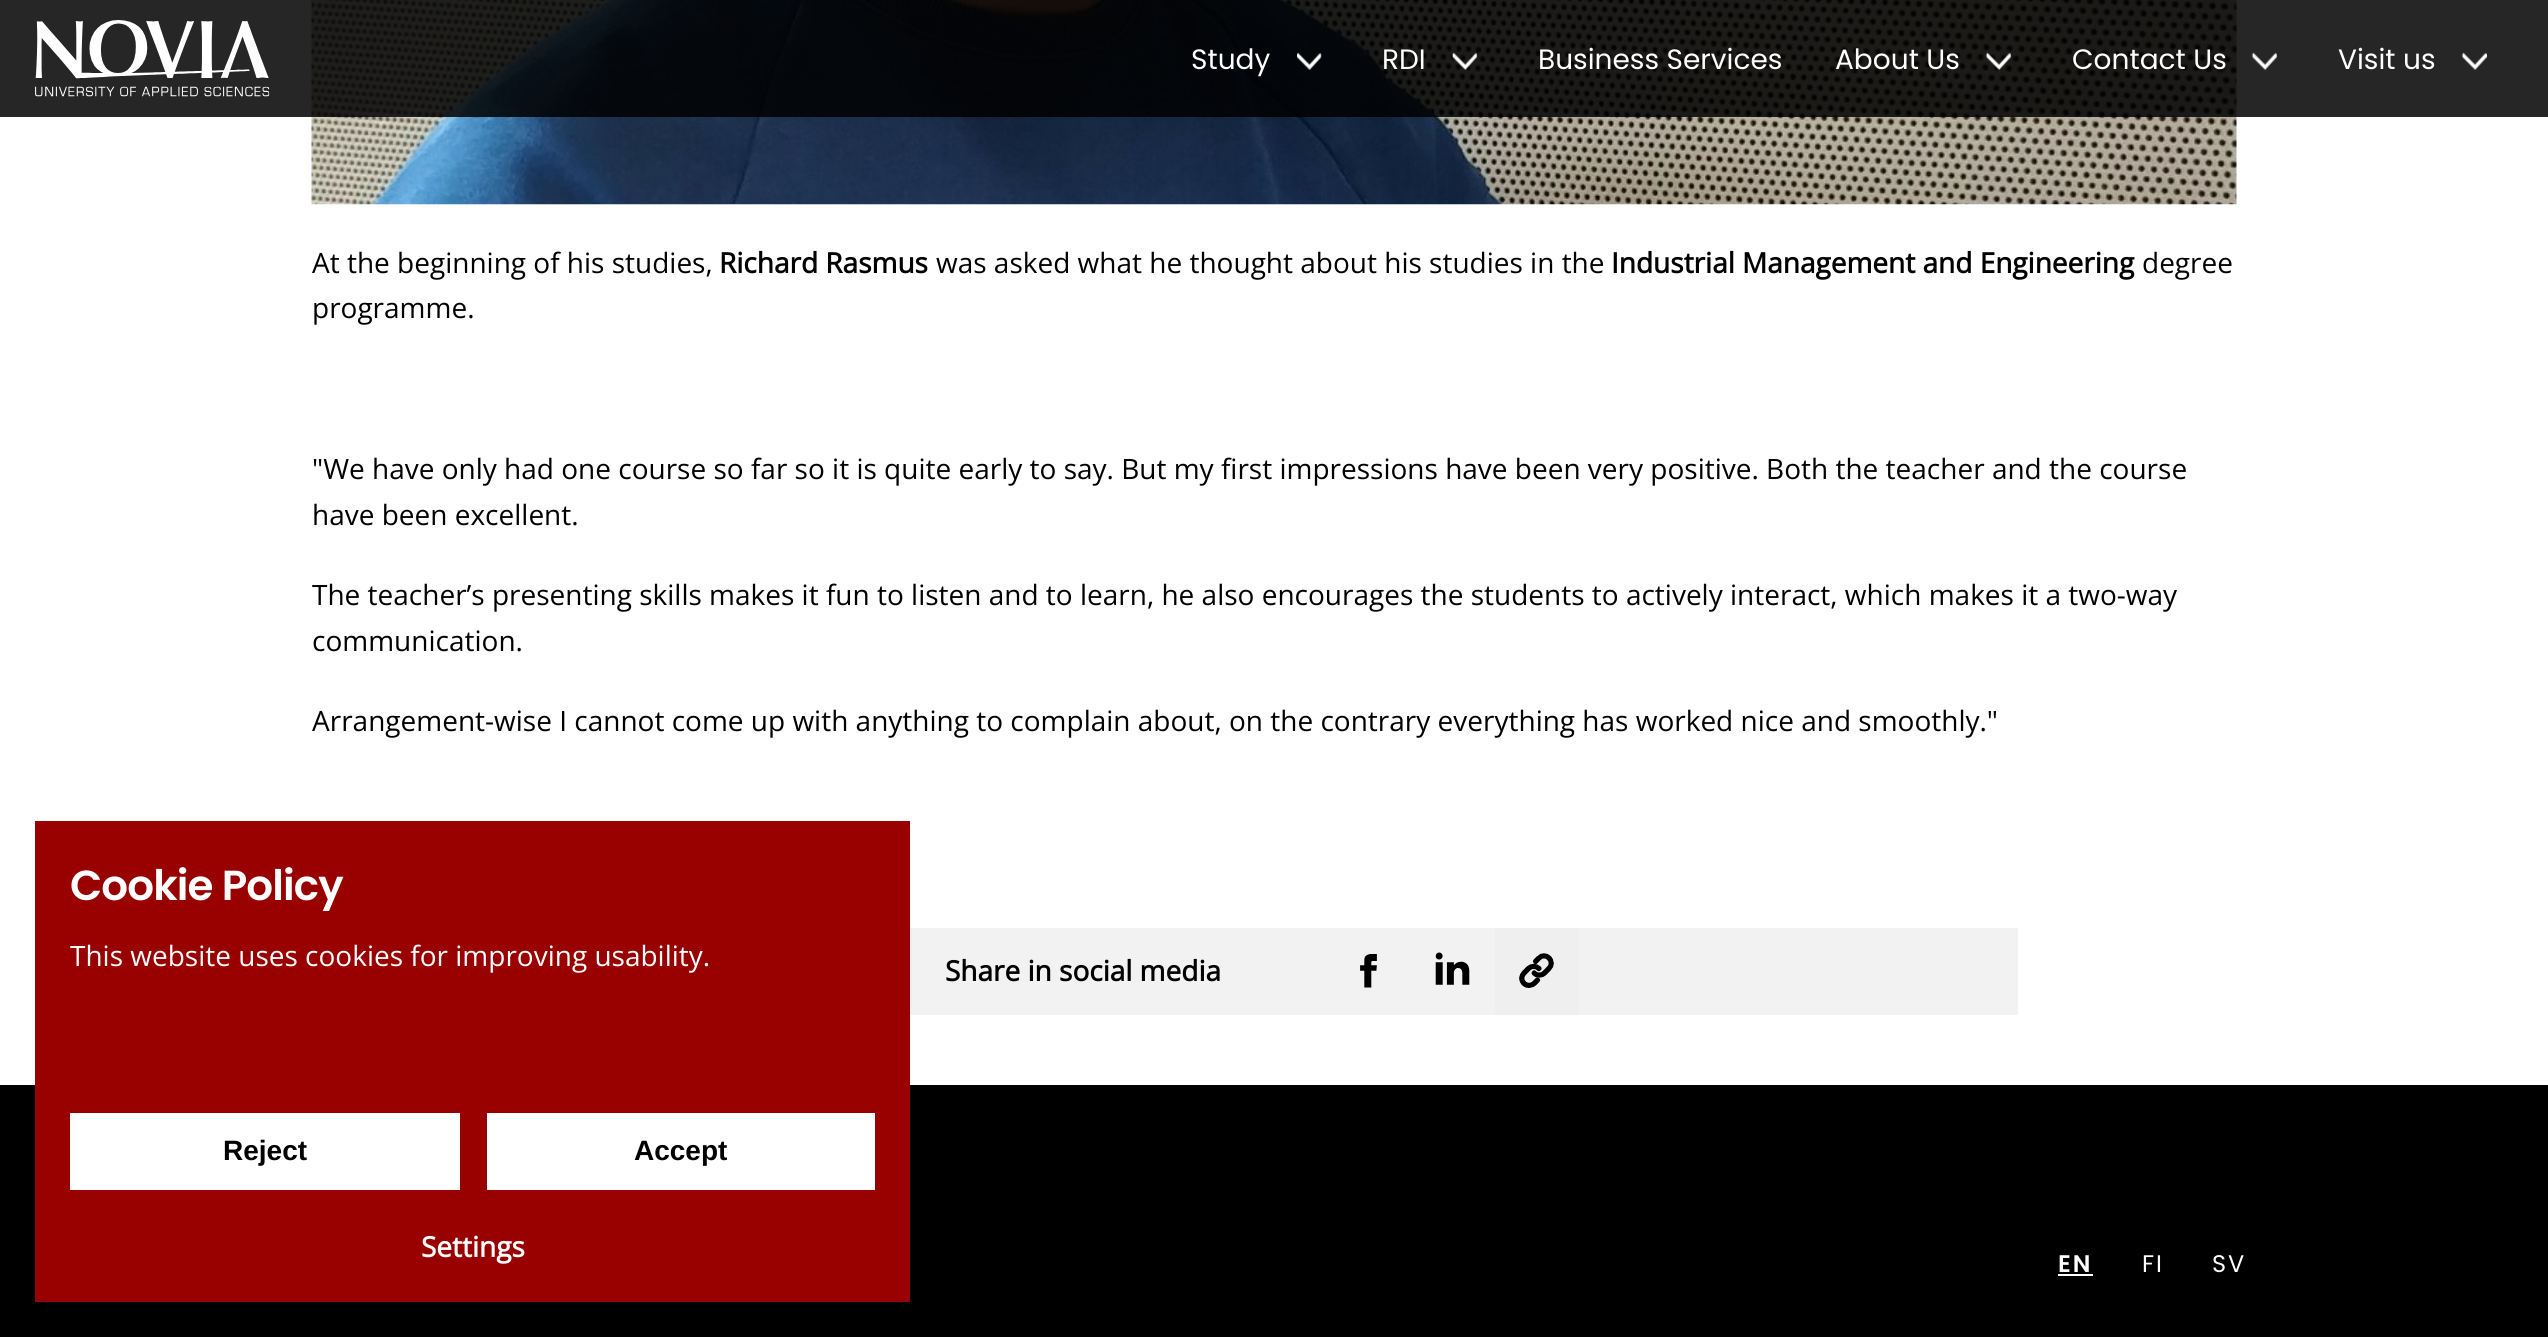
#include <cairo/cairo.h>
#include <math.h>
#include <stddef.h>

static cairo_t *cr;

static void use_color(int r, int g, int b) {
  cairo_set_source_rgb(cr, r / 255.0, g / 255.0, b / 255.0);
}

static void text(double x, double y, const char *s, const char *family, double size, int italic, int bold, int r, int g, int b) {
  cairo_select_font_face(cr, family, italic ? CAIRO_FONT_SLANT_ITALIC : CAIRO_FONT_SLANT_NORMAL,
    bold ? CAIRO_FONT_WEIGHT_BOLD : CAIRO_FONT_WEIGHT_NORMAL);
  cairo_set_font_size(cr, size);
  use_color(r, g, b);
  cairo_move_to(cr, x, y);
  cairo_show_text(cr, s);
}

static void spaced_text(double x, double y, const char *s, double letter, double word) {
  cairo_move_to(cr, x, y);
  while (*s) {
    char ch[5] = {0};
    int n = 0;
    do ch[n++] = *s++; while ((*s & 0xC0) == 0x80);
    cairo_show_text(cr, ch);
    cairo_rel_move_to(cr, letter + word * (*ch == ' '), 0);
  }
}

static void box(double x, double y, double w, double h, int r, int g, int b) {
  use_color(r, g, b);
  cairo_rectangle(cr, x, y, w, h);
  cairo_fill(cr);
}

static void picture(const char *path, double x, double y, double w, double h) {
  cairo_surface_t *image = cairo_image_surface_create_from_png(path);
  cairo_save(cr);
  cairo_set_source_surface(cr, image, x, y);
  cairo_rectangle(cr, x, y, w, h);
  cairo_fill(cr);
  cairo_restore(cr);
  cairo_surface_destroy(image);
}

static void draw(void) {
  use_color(255, 255, 255);
  cairo_paint(cr);
  picture("img_07.png", 311, 0, 1926, 205);
  cairo_set_source_rgba(cr, 0, 0, 0, 0.85);
  cairo_rectangle(cr, 0, 0, 637, 117);
  cairo_fill(cr);
  picture("img_01.png", 35, 20, 235, 77);
  cairo_rectangle(cr, 637, 0, 1911, 117);
  cairo_fill(cr);
  picture("img_02.png", 1297, 52, 25, 18);
  picture("img_03.png", 1452, 52, 26, 18);
  picture("img_04.png", 1985, 52, 26, 18);
  picture("img_05.png", 2251, 52, 26, 18);
  picture("img_06.png", 2461, 52, 26, 18);
  box(910, 928, 1108, 87, 242, 242, 242);
  picture("img_08.png", 1360, 954, 17, 34);
  picture("img_09.png", 1435, 952, 35, 33);
  box(1495, 928, 84, 87, 239, 239, 239);
  picture("img_10.png", 1519, 953, 35, 35);
  box(0, 1085, 2548, 252, 0, 0, 0);
  box(35, 821, 875, 481, 153, 0, 0);
  box(70, 1113, 390, 77, 255, 255, 255);
  box(487, 1113, 388, 77, 255, 255, 255);
  box(2058, 1274, 35, 2, 255, 255, 255);
  text(1191, 69, "Study", "Poppins", 28, 0, 0, 255, 255, 255);
  text(1382, 69, "RDI", "Poppins", 28, 0, 0, 255, 255, 255);
  text(1538, 69, "Business Services", "Poppins", 28, 0, 0, 255, 255, 255);
  text(1835, 69, "About Us", "Poppins", 28, 0, 0, 255, 255, 255);
  text(2072, 69, "Contact Us", "Poppins", 28, 0, 0, 255, 255, 255);
  text(2338, 69, "Visit us", "Poppins", 28, 0, 0, 255, 255, 255);
  text(312, 273, "At the beginning of his studies,", "Open Sans", 28, 0, 0, 0, 0, 0);
  text(719, 273, "Richard Rasmus", "Open Sans", 28, 0, 1, 0, 0, 0);
  text(936, 273, "was asked what he thought about his studies in the", "Open Sans", 28, 0, 0, 0, 0, 0);
  text(1611, 273, "Industrial Management and Engineering", "Open Sans", 28, 0, 1, 0, 0, 0);
  text(2142, 273, "degree", "Open Sans", 28, 0, 0, 0, 0, 0);
  text(312, 318, "programme.", "Open Sans", 28, 0, 0, 0, 0, 0);
  text(312, 479, "\"We have only had one course so far so it is quite early to say. But my first impressions have been very positive. Both the teacher and the course", "Open Sans", 28, 0, 0, 0, 0, 0);
  text(312, 525, "have been excellent.", "Open Sans", 28, 0, 0, 0, 0, 0);
  text(312, 605, "The teacher’s presenting skills makes it fun to listen and to learn, he also encourages the students to actively interact, which makes it a two-way", "Open Sans", 28, 0, 0, 0, 0, 0);
  text(312, 651, "communication.", "Open Sans", 28, 0, 0, 0, 0, 0);
  text(312, 731, "Arrangement-wise I cannot come up with anything to complain about, on the contrary everything has worked nice and smoothly.\"", "Open Sans", 28, 0, 0, 0, 0, 0);
  text(945, 981, "Share in social media", "Open Sans", 28, 0, 1, 0, 0, 0);
  cairo_select_font_face(cr, "Poppins SemiBold", CAIRO_FONT_SLANT_NORMAL, CAIRO_FONT_WEIGHT_NORMAL);
  cairo_set_font_size(cr, 42);
  use_color(255, 255, 255);
  spaced_text(70, 900, "Cookie Policy", -0.9, 0);
  text(70, 966, "This website uses cookies for improving usability.", "Open Sans", 28, 0, 0, 255, 255, 255);
  text(223, 1160, "Reject", "Liberation Sans", 28, 0, 1, 0, 0, 0);
  text(634, 1160, "Accept", "Liberation Sans", 28, 0, 1, 0, 0, 0);
  text(421, 1257, "Settings", "Open Sans", 28, 0, 1, 255, 255, 255);
  cairo_select_font_face(cr, "Poppins SemiBold", CAIRO_FONT_SLANT_NORMAL, CAIRO_FONT_WEIGHT_NORMAL);
  cairo_set_font_size(cr, 24);
  spaced_text(2058, 1272, "EN", 2, 0);
  cairo_select_font_face(cr, "Poppins", CAIRO_FONT_SLANT_NORMAL, CAIRO_FONT_WEIGHT_NORMAL);
  spaced_text(2142, 1272, "FI", 2, 0);
  spaced_text(2212, 1272, "SV", 2, 0);
}

int main(void) {
  cairo_surface_t *surface = cairo_image_surface_create(CAIRO_FORMAT_RGB24, 2548, 1337);
  cr = cairo_create(surface);
  cairo_font_options_t *options = cairo_font_options_create();
  cairo_font_options_set_hint_metrics(options, CAIRO_HINT_METRICS_OFF);
  cairo_font_options_set_hint_style(options, CAIRO_HINT_STYLE_NONE);
  cairo_set_font_options(cr, options);
  cairo_set_miter_limit(cr, 4);
  draw();
  cairo_surface_write_to_png(surface, "out.png");
  cairo_font_options_destroy(options);
  cairo_destroy(cr);
  cairo_surface_destroy(surface);
  return 0;
}
